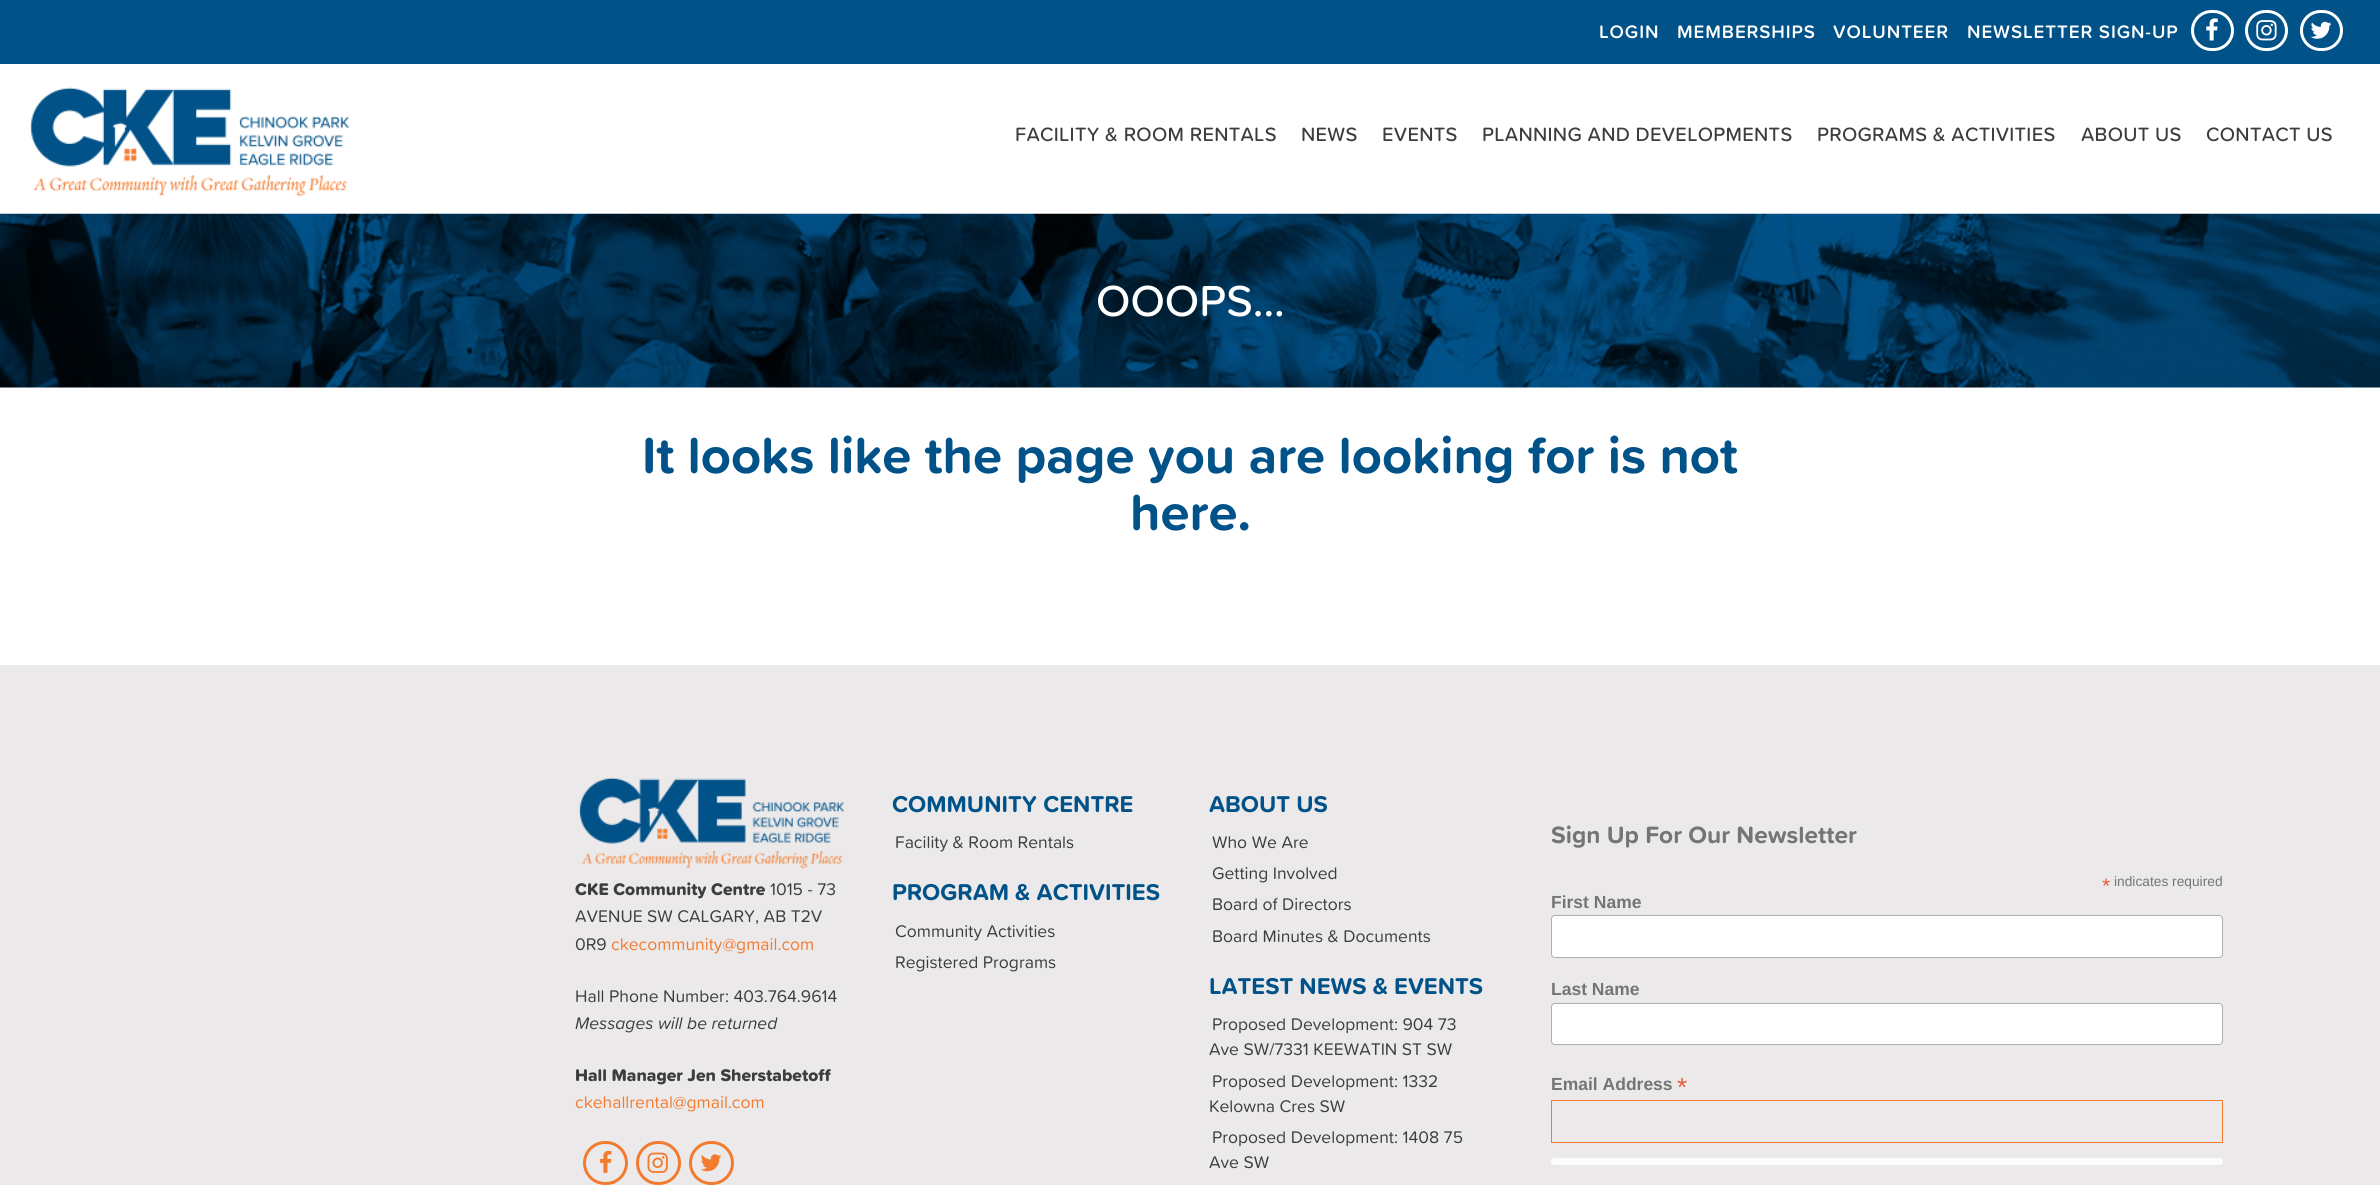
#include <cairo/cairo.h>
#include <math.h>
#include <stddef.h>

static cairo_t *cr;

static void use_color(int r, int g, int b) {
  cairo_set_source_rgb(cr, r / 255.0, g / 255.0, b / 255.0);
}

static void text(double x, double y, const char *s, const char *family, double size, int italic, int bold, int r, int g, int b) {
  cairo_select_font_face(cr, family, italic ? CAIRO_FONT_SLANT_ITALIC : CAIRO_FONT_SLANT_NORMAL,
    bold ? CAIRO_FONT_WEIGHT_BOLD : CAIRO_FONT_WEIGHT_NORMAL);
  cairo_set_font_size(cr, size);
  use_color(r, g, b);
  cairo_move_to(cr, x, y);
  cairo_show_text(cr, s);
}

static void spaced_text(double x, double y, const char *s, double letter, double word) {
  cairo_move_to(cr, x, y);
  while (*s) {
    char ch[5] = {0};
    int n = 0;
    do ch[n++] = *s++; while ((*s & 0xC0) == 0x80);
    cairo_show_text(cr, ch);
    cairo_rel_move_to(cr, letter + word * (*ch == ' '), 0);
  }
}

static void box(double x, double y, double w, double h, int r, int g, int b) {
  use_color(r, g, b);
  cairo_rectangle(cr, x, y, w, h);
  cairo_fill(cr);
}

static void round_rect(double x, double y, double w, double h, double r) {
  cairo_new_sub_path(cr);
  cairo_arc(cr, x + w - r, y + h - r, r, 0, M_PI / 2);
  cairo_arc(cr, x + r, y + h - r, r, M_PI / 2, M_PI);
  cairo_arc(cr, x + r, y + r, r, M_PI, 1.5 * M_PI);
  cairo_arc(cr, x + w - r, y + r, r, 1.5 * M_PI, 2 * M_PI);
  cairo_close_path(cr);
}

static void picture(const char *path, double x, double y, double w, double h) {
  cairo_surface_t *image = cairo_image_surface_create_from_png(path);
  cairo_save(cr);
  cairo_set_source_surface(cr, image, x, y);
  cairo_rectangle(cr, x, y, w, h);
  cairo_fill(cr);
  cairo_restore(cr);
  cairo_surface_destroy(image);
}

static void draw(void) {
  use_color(255, 255, 255);
  cairo_paint(cr);
  box(0, 0, 2380, 64, 1, 82, 137);
  round_rect(2192.5, 11.5, 40, 38, 19);
  use_color(255, 255, 255);
  cairo_set_line_width(cr, 3);
  cairo_stroke(cr);
  picture("img_01.png", 2206, 18, 12, 23);
  round_rect(2246.5, 11.5, 40, 38, 19);
  cairo_stroke(cr);
  picture("img_02.png", 2256, 20, 21, 21);
  round_rect(2301.5, 11.5, 40, 38, 19);
  cairo_stroke(cr);
  picture("img_03.png", 2310, 21, 22, 18);
  picture("img_04.png", 30, 87, 319, 110);
  picture("img_05.png", 0, 213, 2380, 175);
  box(0, 665, 2380, 520, 235, 233, 234);
  picture("img_06.png", 579, 777, 265, 92);
  round_rect(584.5, 1142.5, 42, 41, 20.5);
  use_color(243, 123, 47);
  cairo_stroke(cr);
  picture("img_07.png", 600, 1150, 12, 23);
  round_rect(637.5, 1142.5, 42, 41, 20.5);
  cairo_stroke(cr);
  picture("img_08.png", 647, 1152, 21, 21);
  round_rect(690.5, 1142.5, 42, 41, 20.5);
  cairo_stroke(cr);
  picture("img_09.png", 700, 1154, 22, 18);
  use_color(255, 255, 255);
  round_rect(1551.5, 915.5, 671, 42, 3.5);
  cairo_fill_preserve(cr);
  use_color(171, 176, 178);
  cairo_set_line_width(cr, 1);
  cairo_stroke(cr);
  use_color(255, 255, 255);
  round_rect(1551.5, 1003.5, 671, 41, 3.5);
  cairo_fill_preserve(cr);
  use_color(171, 176, 178);
  cairo_stroke(cr);
  cairo_rectangle(cr, 1551.5, 1100.5, 671, 42);
  use_color(243, 123, 47);
  cairo_stroke(cr);
  use_color(252, 252, 252);
  round_rect(1551, 1158, 672, 7, 3.5);
  cairo_fill(cr);
  cairo_select_font_face(cr, "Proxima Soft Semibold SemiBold", CAIRO_FONT_SLANT_NORMAL, CAIRO_FONT_WEIGHT_NORMAL);
  cairo_set_font_size(cr, 18.75);
  use_color(255, 255, 255);
  spaced_text(1599, 38, "LOGIN", 0.9, 0);
  spaced_text(1677, 38, "MEMBERSHIPS", 0.9, 0);
  spaced_text(1833, 38, "VOLUNTEER", 0.9, 0);
  spaced_text(1967, 38, "NEWSLETTER SIGN-UP", 0.9, 0);
  cairo_select_font_face(cr, "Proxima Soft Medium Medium", CAIRO_FONT_SLANT_NORMAL, CAIRO_FONT_WEIGHT_NORMAL);
  cairo_set_font_size(cr, 20);
  use_color(61, 61, 61);
  spaced_text(1015, 141, "FACILITY & ROOM RENTALS", 0.3, 0);
  spaced_text(1301, 141, "NEWS", 0.3, 0);
  spaced_text(1382, 141, "EVENTS", 0.3, 0);
  spaced_text(1482, 141, "PLANNING AND DEVELOPMENTS", 0.3, 0);
  spaced_text(1817, 141, "PROGRAMS & ACTIVITIES", 0.3, 0);
  spaced_text(2081, 141, "ABOUT US", 0.3, 0);
  spaced_text(2206, 141, "CONTACT US", 0.3, 0);
  text(1096, 316, "OOOPS...", "Proxima Soft Medium Medium", 45, 0, 0, 255, 255, 255);
  text(642, 473, "It looks like the page you are looking for is not", "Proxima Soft", 52.5, 0, 1, 1, 82, 137);
  text(1130, 530, "here.", "Proxima Soft", 52.5, 0, 1, 1, 82, 137);
  text(575, 895, "CKE Community Centre", "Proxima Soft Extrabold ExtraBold", 17.5, 0, 0, 61, 61, 61);
  text(770, 895, "1015 - 73", "Proxima Soft", 17.5, 0, 0, 61, 61, 61);
  text(575, 922, "AVENUE SW CALGARY, AB T2V", "Proxima Soft", 17.5, 0, 0, 61, 61, 61);
  text(575, 950, "0R9", "Proxima Soft", 17.5, 0, 0, 61, 61, 61);
  text(611, 950, "ckecommunity@gmail.com", "Proxima Soft", 17.5, 0, 0, 243, 123, 47);
  text(575, 1002, "Hall Phone Number: 403.764.9614", "Proxima Soft", 17.5, 0, 0, 61, 61, 61);
  text(575, 1029, "Messages will be returned", "Proxima Soft", 17.5, 1, 0, 61, 61, 61);
  text(575, 1081, "Hall Manager Jen Sherstabetoff", "Proxima Soft Extrabold ExtraBold", 17.5, 0, 0, 61, 61, 61);
  text(575, 1108, "ckehallrental@gmail.com", "Proxima Soft", 17.5, 0, 0, 243, 123, 47);
  text(892, 812, "COMMUNITY CENTRE", "Proxima Soft", 23.75, 0, 1, 1, 82, 137);
  text(895, 848, "Facility & Room Rentals", "Proxima Soft", 17.5, 0, 0, 61, 61, 61);
  text(892, 900, "PROGRAM & ACTIVITIES", "Proxima Soft", 23.75, 0, 1, 1, 82, 137);
  text(895, 937, "Community Activities", "Proxima Soft", 17.5, 0, 0, 61, 61, 61);
  text(895, 968, "Registered Programs", "Proxima Soft", 17.5, 0, 0, 61, 61, 61);
  text(1209, 812, "ABOUT US", "Proxima Soft", 23.75, 0, 1, 1, 82, 137);
  text(1212, 848, "Who We Are", "Proxima Soft", 17.5, 0, 0, 61, 61, 61);
  text(1212, 879, "Getting Involved", "Proxima Soft", 17.5, 0, 0, 61, 61, 61);
  text(1212, 910, "Board of Directors", "Proxima Soft", 17.5, 0, 0, 61, 61, 61);
  text(1212, 942, "Board Minutes & Documents", "Proxima Soft", 17.5, 0, 0, 61, 61, 61);
  text(1209, 994, "LATEST NEWS & EVENTS", "Proxima Soft", 23.75, 0, 1, 1, 82, 137);
  text(1212, 1030, "Proposed Development: 904 73", "Proxima Soft", 17.5, 0, 0, 61, 61, 61);
  text(1209, 1055, "Ave SW/7331 KEEWATIN ST SW", "Proxima Soft", 17.5, 0, 0, 61, 61, 61);
  text(1212, 1087, "Proposed Development: 1332", "Proxima Soft", 17.5, 0, 0, 61, 61, 61);
  text(1209, 1112, "Kelowna Cres SW", "Proxima Soft", 17.5, 0, 0, 61, 61, 61);
  text(1212, 1143, "Proposed Development: 1408 75", "Proxima Soft", 17.5, 0, 0, 61, 61, 61);
  text(1209, 1168, "Ave SW", "Proxima Soft", 17.5, 0, 0, 61, 61, 61);
  text(1551, 843, "Sign Up For Our Newsletter", "Proxima Soft", 24.5, 0, 1, 117, 117, 117);
  text(2102, 893, "*", "Liberation Sans", 21, 0, 0, 232, 92, 65);
  text(2114, 886, "indicates required", "Liberation Sans", 13.75, 0, 0, 117, 117, 117);
  text(1551, 908, "First Name", "Liberation Sans", 17.5, 0, 1, 117, 117, 117);
  text(1551, 995, "Last Name", "Liberation Sans", 17.5, 0, 1, 117, 117, 117);
  text(1551, 1090, "Email Address", "Liberation Sans", 17.5, 0, 1, 117, 117, 117);
  text(1677, 1096, "*", "Liberation Sans", 26, 0, 0, 232, 92, 65);
}

int main(void) {
  cairo_surface_t *surface = cairo_image_surface_create(CAIRO_FORMAT_RGB24, 2380, 1185);
  cr = cairo_create(surface);
  cairo_font_options_t *options = cairo_font_options_create();
  cairo_font_options_set_hint_metrics(options, CAIRO_HINT_METRICS_OFF);
  cairo_font_options_set_hint_style(options, CAIRO_HINT_STYLE_NONE);
  cairo_set_font_options(cr, options);
  cairo_set_miter_limit(cr, 4);
  draw();
  cairo_surface_write_to_png(surface, "out.png");
  cairo_font_options_destroy(options);
  cairo_destroy(cr);
  cairo_surface_destroy(surface);
  return 0;
}
